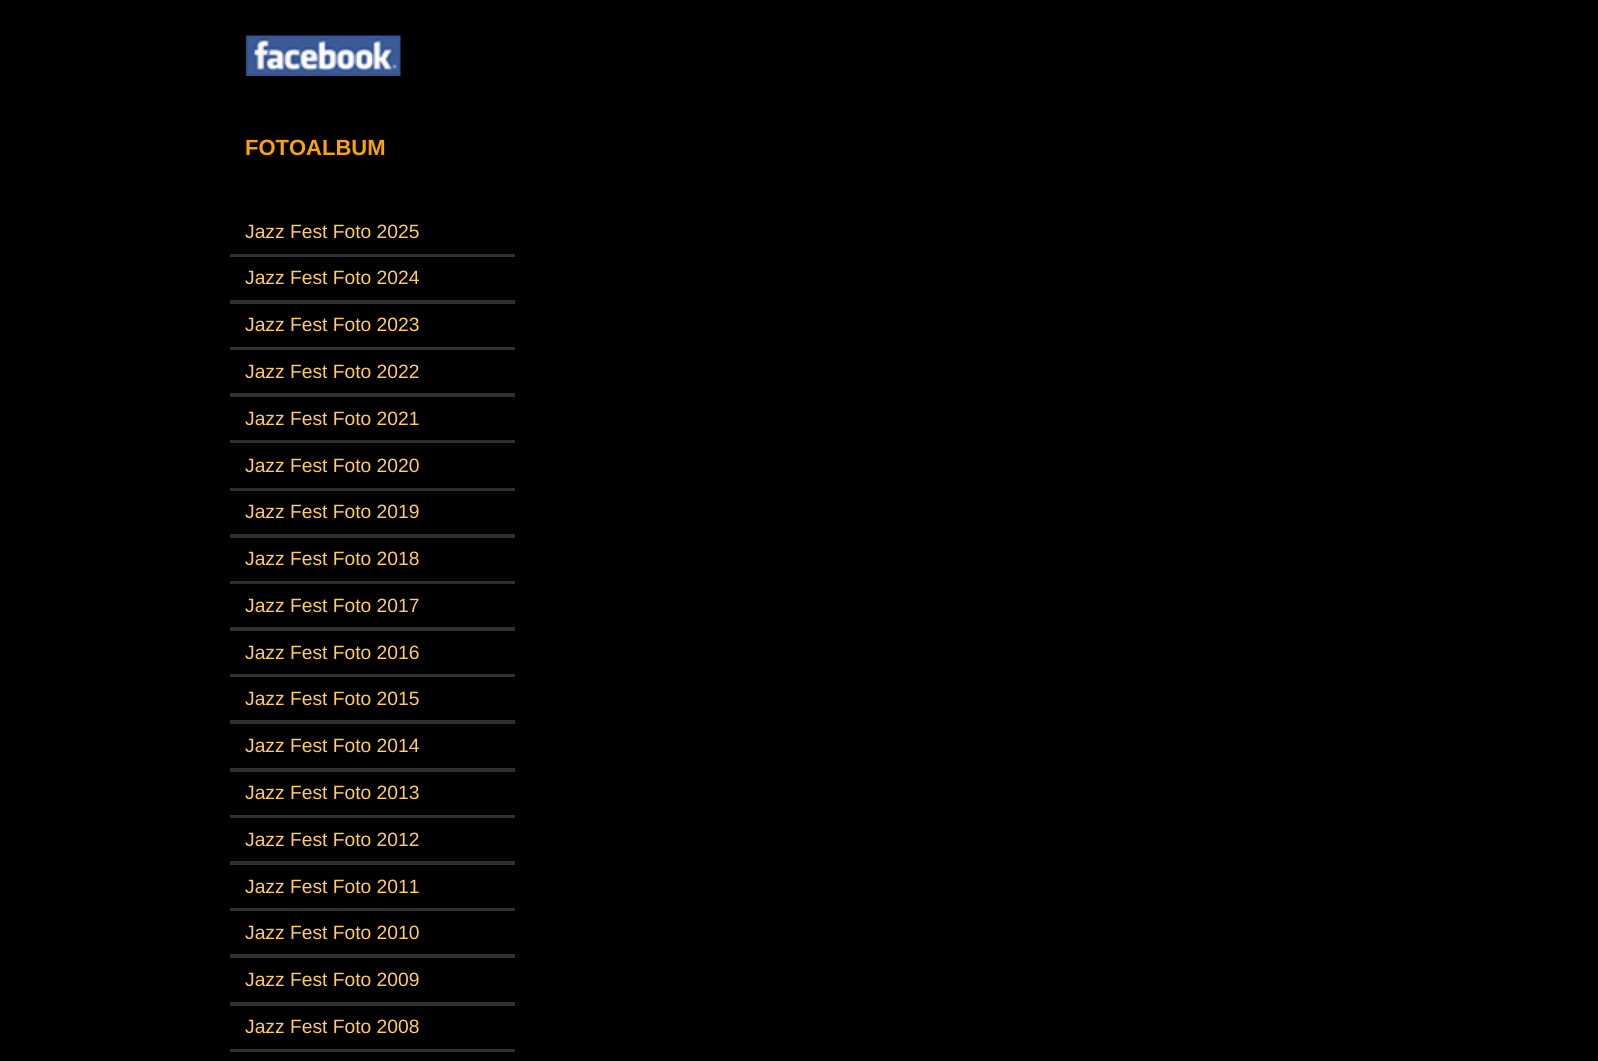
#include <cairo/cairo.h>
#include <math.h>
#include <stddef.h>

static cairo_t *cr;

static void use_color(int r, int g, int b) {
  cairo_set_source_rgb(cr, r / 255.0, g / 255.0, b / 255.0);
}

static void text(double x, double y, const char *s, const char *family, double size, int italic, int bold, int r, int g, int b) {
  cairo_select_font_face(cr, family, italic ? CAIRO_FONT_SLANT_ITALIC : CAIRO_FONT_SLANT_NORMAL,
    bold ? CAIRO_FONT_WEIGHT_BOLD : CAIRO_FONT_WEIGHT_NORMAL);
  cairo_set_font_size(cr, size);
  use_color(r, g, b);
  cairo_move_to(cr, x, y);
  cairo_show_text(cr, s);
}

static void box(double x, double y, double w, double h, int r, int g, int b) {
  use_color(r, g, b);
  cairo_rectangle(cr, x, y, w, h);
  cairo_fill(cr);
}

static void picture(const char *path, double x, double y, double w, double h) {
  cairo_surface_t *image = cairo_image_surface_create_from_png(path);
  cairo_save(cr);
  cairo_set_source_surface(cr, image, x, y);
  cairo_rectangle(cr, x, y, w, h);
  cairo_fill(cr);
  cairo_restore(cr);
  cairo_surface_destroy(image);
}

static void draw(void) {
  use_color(0, 0, 0);
  cairo_paint(cr);
  picture("img_01.png", 245, 35, 156, 41);
  box(230, 254, 285, 3, 48, 48, 48);
  box(230, 300, 285, 4, 48, 48, 48);
  box(230, 347, 285, 3, 48, 48, 48);
  box(230, 393, 285, 4, 48, 48, 48);
  box(230, 440, 285, 3, 48, 48, 48);
  box(230, 488, 285, 3, 48, 48, 48);
  box(230, 534, 285, 4, 48, 48, 48);
  box(230, 581, 285, 3, 48, 48, 48);
  box(230, 627, 285, 4, 48, 48, 48);
  box(230, 674, 285, 3, 48, 48, 48);
  box(230, 720, 285, 4, 48, 48, 48);
  box(230, 768, 285, 4, 48, 48, 48);
  box(230, 815, 285, 3, 48, 48, 48);
  box(230, 861, 285, 4, 48, 48, 48);
  box(230, 908, 285, 3, 48, 48, 48);
  box(230, 954, 285, 4, 48, 48, 48);
  box(230, 1002, 285, 4, 48, 48, 48);
  box(230, 1049, 285, 3, 48, 48, 48);
  text(245, 155, "FOTOALBUM", "Liberation Sans", 22, 0, 1, 249, 162, 14);
  text(245, 238, "Jazz Fest Foto 2025", "Liberation Sans", 19.25, 0, 0, 255, 204, 102);
  text(245, 284, "Jazz Fest Foto 2024", "Liberation Sans", 19.25, 0, 0, 255, 204, 102);
  text(245, 331, "Jazz Fest Foto 2023", "Liberation Sans", 19.25, 0, 0, 255, 204, 102);
  text(245, 378, "Jazz Fest Foto 2022", "Liberation Sans", 19.25, 0, 0, 255, 204, 102);
  text(245, 425, "Jazz Fest Foto 2021", "Liberation Sans", 19.25, 0, 0, 255, 204, 102);
  text(245, 472, "Jazz Fest Foto 2020", "Liberation Sans", 19.25, 0, 0, 255, 204, 102);
  text(245, 518, "Jazz Fest Foto 2019", "Liberation Sans", 19.25, 0, 0, 255, 204, 102);
  text(245, 565, "Jazz Fest Foto 2018", "Liberation Sans", 19.25, 0, 0, 255, 204, 102);
  text(245, 612, "Jazz Fest Foto 2017", "Liberation Sans", 19.25, 0, 0, 255, 204, 102);
  text(245, 659, "Jazz Fest Foto 2016", "Liberation Sans", 19.25, 0, 0, 255, 204, 102);
  text(245, 705, "Jazz Fest Foto 2015", "Liberation Sans", 19.25, 0, 0, 255, 204, 102);
  text(245, 752, "Jazz Fest Foto 2014", "Liberation Sans", 19.25, 0, 0, 255, 204, 102);
  text(245, 799, "Jazz Fest Foto 2013", "Liberation Sans", 19.25, 0, 0, 255, 204, 102);
  text(245, 846, "Jazz Fest Foto 2012", "Liberation Sans", 19.25, 0, 0, 255, 204, 102);
  text(245, 893, "Jazz Fest Foto 2011", "Liberation Sans", 19.25, 0, 0, 255, 204, 102);
  text(245, 939, "Jazz Fest Foto 2010", "Liberation Sans", 19.25, 0, 0, 255, 204, 102);
  text(245, 986, "Jazz Fest Foto 2009", "Liberation Sans", 19.25, 0, 0, 255, 204, 102);
  text(245, 1033, "Jazz Fest Foto 2008", "Liberation Sans", 19.25, 0, 0, 255, 204, 102);
}

int main(void) {
  cairo_surface_t *surface = cairo_image_surface_create(CAIRO_FORMAT_RGB24, 1598, 1061);
  cr = cairo_create(surface);
  cairo_font_options_t *options = cairo_font_options_create();
  cairo_font_options_set_hint_metrics(options, CAIRO_HINT_METRICS_OFF);
  cairo_font_options_set_hint_style(options, CAIRO_HINT_STYLE_NONE);
  cairo_set_font_options(cr, options);
  cairo_set_miter_limit(cr, 4);
  draw();
  cairo_surface_write_to_png(surface, "out.png");
  cairo_font_options_destroy(options);
  cairo_destroy(cr);
  cairo_surface_destroy(surface);
  return 0;
}
